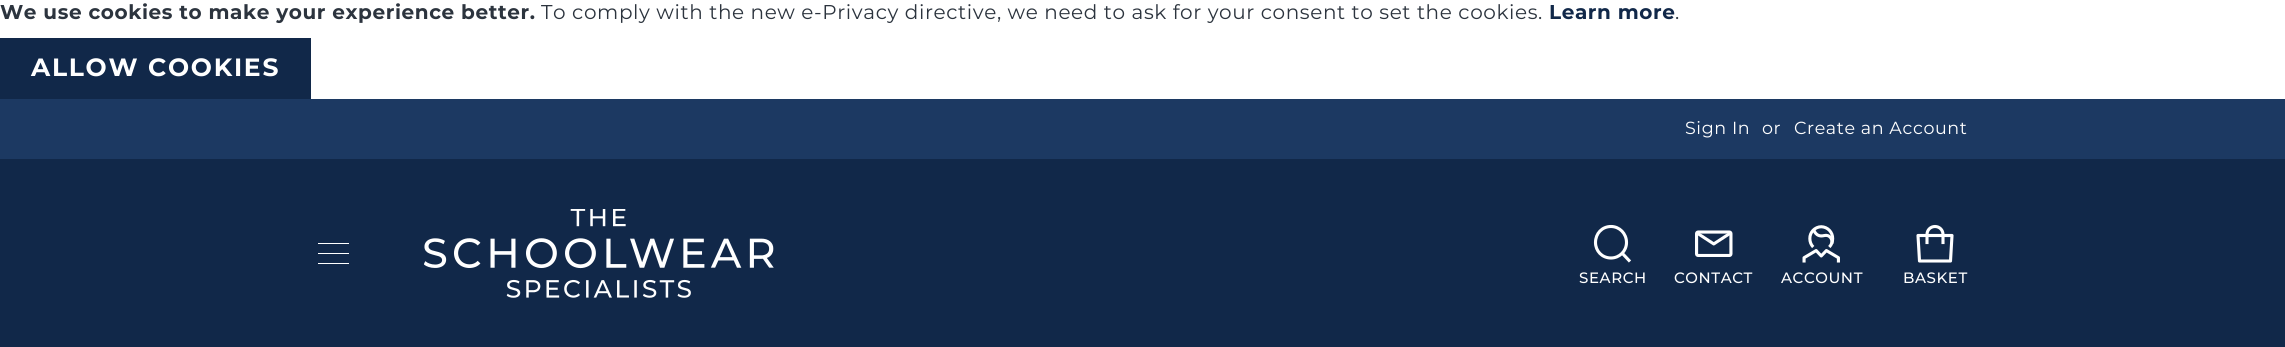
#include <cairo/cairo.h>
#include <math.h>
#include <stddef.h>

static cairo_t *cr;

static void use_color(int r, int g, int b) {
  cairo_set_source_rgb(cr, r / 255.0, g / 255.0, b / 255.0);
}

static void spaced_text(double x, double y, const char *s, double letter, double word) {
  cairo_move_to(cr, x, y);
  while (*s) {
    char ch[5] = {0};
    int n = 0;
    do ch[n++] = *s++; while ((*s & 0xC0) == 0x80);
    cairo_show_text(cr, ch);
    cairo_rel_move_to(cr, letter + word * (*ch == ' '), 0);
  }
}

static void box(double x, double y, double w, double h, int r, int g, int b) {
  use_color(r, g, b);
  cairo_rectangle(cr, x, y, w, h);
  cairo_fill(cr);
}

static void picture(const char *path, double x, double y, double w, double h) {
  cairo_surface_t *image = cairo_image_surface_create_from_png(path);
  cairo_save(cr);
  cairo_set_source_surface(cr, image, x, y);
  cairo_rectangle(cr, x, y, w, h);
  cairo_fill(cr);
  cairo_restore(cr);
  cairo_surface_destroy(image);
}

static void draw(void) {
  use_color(255, 255, 255);
  cairo_paint(cr);
  box(0, 38, 311, 61, 17, 40, 73);
  box(0, 159, 2285, 188, 17, 40, 73);
  box(0, 99, 2285, 60, 28, 57, 98);
  box(318, 243, 31, 1, 255, 255, 255);
  box(318, 263, 31, 1, 255, 255, 255);
  box(318, 253, 31, 1, 255, 255, 255);
  picture("img_01.png", 424, 209, 350, 89);
  cairo_new_path(cr);
  cairo_move_to(cr, 1611, 258);
  cairo_curve_to(cr, 1619.5, 258, 1626.5, 251, 1626.5, 242.5);
  cairo_curve_to(cr, 1626.5, 233.5, 1619.5, 226.5, 1611, 226.5);
  cairo_curve_to(cr, 1602, 226.5, 1595.5, 233.5, 1595.5, 242.5);
  cairo_curve_to(cr, 1595.5, 251, 1602, 258, 1611, 258);
  cairo_close_path(cr);
  cairo_move_to(cr, 1622, 253);
  cairo_line_to(cr, 1630, 261.5);
  cairo_set_line_width(cr, 3.1);
  cairo_set_line_join(cr, CAIRO_LINE_JOIN_ROUND);
  cairo_stroke(cr);
  picture("img_02.png", 1695, 230, 38, 27);
  picture("img_03.png", 1802, 225, 38, 38);
  cairo_new_path(cr);
  cairo_move_to(cr, 1918, 235.5);
  cairo_line_to(cr, 1952, 235.5);
  cairo_line_to(cr, 1950.5, 261);
  cairo_line_to(cr, 1919.5, 261);
  cairo_close_path(cr);
  cairo_stroke(cr);
  cairo_new_path(cr);
  cairo_move_to(cr, 1927, 242.5);
  cairo_line_to(cr, 1927, 234.5);
  cairo_curve_to(cr, 1927, 230, 1930.5, 226.5, 1935, 226.5);
  cairo_curve_to(cr, 1939.5, 226.5, 1943, 230, 1943, 234.5);
  cairo_line_to(cr, 1943, 242.5);
  cairo_set_line_cap(cr, CAIRO_LINE_CAP_SQUARE);
  cairo_stroke(cr);
  cairo_select_font_face(cr, "Montserrat", CAIRO_FONT_SLANT_NORMAL, CAIRO_FONT_WEIGHT_BOLD);
  cairo_set_font_size(cr, 20);
  use_color(44, 52, 62);
  spaced_text(0, 19, "We use cookies to make your experience better.", 0.6, 0);
  cairo_select_font_face(cr, "Montserrat", CAIRO_FONT_SLANT_NORMAL, CAIRO_FONT_WEIGHT_NORMAL);
  spaced_text(541, 19, "To comply with the new e-Privacy directive, we need to ask for your consent to set the cookies.", 0.6, 0);
  cairo_select_font_face(cr, "Montserrat", CAIRO_FONT_SLANT_NORMAL, CAIRO_FONT_WEIGHT_BOLD);
  use_color(17, 40, 73);
  spaced_text(1549, 19, "Learn more", 0.6, 0);
  cairo_select_font_face(cr, "Montserrat", CAIRO_FONT_SLANT_NORMAL, CAIRO_FONT_WEIGHT_NORMAL);
  use_color(44, 52, 62);
  spaced_text(1675, 19, ".", 0.6, 0);
  cairo_select_font_face(cr, "Montserrat", CAIRO_FONT_SLANT_NORMAL, CAIRO_FONT_WEIGHT_BOLD);
  cairo_set_font_size(cr, 25);
  use_color(255, 255, 255);
  spaced_text(31, 76, "ALLOW COOKIES", 1.75, 0);
  cairo_select_font_face(cr, "Montserrat", CAIRO_FONT_SLANT_NORMAL, CAIRO_FONT_WEIGHT_NORMAL);
  cairo_set_font_size(cr, 17.5);
  spaced_text(1685, 134, "Sign In", 0.6, 0);
  spaced_text(1762, 134, "or", 0.6, 0);
  spaced_text(1794, 134, "Create an Account", 0.6, 0);
  cairo_select_font_face(cr, "Montserrat Medium", CAIRO_FONT_SLANT_NORMAL, CAIRO_FONT_WEIGHT_NORMAL);
  cairo_set_font_size(cr, 15);
  spaced_text(1579, 283, "SEARCH", 0.6, 0);
  spaced_text(1674, 283, "CONTACT", 0.6, 0);
  spaced_text(1781, 283, "ACCOUNT", 0.6, 0);
  spaced_text(1903, 283, "BASKET", 0.6, 0);
}

int main(void) {
  cairo_surface_t *surface = cairo_image_surface_create(CAIRO_FORMAT_RGB24, 2285, 347);
  cr = cairo_create(surface);
  cairo_font_options_t *options = cairo_font_options_create();
  cairo_font_options_set_hint_metrics(options, CAIRO_HINT_METRICS_OFF);
  cairo_font_options_set_hint_style(options, CAIRO_HINT_STYLE_NONE);
  cairo_set_font_options(cr, options);
  cairo_set_miter_limit(cr, 4);
  draw();
  cairo_surface_write_to_png(surface, "out.png");
  cairo_font_options_destroy(options);
  cairo_destroy(cr);
  cairo_surface_destroy(surface);
  return 0;
}
